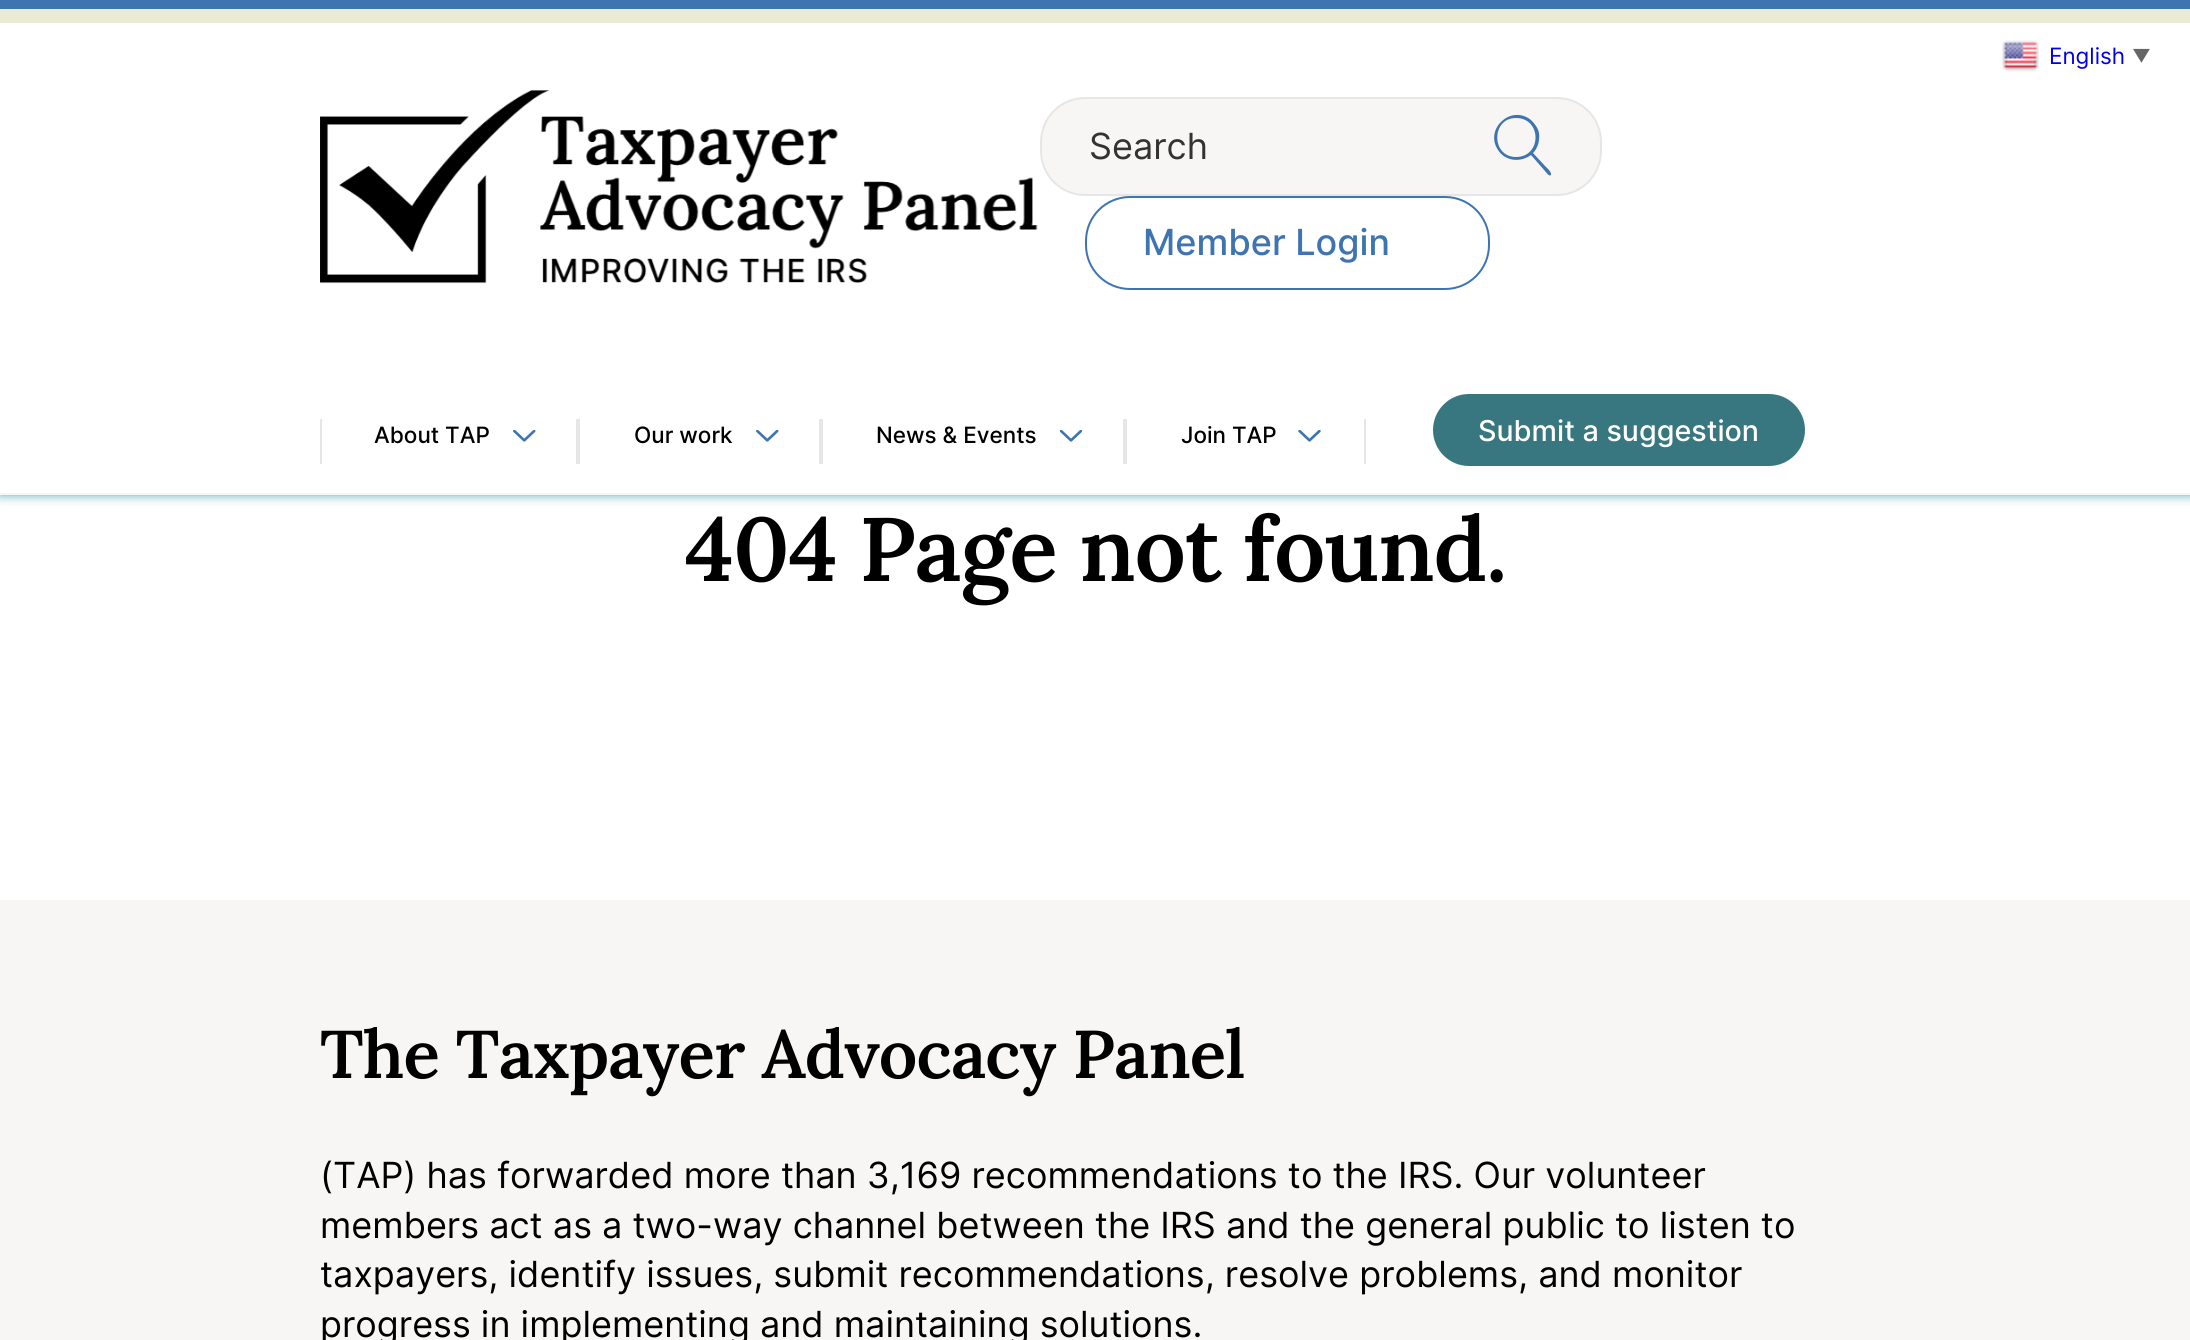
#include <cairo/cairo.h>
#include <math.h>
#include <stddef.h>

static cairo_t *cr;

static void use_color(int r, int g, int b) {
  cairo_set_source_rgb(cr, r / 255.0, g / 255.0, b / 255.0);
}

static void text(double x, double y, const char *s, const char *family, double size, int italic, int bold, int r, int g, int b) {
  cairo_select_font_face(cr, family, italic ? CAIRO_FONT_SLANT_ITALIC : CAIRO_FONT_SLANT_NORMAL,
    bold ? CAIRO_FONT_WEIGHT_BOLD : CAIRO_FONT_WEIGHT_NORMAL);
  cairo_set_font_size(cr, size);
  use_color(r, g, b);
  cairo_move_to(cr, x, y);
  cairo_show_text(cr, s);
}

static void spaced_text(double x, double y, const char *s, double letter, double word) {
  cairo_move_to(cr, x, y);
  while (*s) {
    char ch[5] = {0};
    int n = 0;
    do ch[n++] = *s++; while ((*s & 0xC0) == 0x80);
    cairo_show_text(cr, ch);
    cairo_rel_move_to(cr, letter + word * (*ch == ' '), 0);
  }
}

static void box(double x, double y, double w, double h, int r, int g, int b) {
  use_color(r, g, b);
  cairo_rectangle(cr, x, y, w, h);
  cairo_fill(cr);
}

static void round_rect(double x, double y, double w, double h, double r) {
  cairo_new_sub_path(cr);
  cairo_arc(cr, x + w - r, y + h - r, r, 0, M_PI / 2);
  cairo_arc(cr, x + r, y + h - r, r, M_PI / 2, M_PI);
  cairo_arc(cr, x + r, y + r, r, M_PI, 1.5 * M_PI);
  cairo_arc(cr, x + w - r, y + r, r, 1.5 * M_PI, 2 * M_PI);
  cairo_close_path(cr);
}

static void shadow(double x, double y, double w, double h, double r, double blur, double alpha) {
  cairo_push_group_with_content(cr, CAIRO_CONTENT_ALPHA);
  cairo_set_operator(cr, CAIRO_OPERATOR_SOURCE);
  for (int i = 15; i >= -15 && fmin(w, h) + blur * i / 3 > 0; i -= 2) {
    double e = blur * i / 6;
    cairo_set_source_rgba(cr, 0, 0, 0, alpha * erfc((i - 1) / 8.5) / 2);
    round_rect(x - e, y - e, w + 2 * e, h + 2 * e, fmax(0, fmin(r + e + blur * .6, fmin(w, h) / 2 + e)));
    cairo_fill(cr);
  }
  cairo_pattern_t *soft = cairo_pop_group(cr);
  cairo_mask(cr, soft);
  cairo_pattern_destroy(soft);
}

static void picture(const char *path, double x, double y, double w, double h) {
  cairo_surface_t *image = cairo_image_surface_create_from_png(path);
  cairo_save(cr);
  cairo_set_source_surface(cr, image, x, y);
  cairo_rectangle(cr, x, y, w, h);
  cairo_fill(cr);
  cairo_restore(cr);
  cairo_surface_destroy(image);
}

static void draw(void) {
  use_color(255, 255, 255);
  cairo_paint(cr);
  cairo_save(cr);
  cairo_rectangle(cr, 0, 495, 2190, 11);
  cairo_clip(cr);
  use_color(81, 172, 177);
  shadow(0, 0, 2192, 495, 0, 5.5, 1);
  cairo_restore(cr);
  picture("img_01.png", 2002, 40, 37, 32);
  box(0, 0, 2190, 9, 62, 116, 176);
  box(0, 9, 2190, 14, 235, 235, 211);
  picture("img_02.png", 320, 90, 718, 194);
  use_color(247, 246, 244);
  round_rect(1041, 98, 560, 97, 44);
  cairo_fill_preserve(cr);
  use_color(230, 230, 230);
  cairo_stroke(cr);
  use_color(62, 116, 176);
  cairo_set_fill_rule(cr, CAIRO_FILL_RULE_EVEN_ODD);
  cairo_new_path(cr);
  cairo_move_to(cr, 1533, 153);
  cairo_line_to(cr, 1545, 166);
  cairo_curve_to(cr, 1546, 167, 1552, 172, 1551, 175);
  cairo_curve_to(cr, 1549, 177, 1546, 172, 1545, 171);
  cairo_line_to(cr, 1531, 155);
  cairo_curve_to(cr, 1520, 163, 1505, 161, 1498, 150);
  cairo_curve_to(cr, 1484, 129, 1511, 104, 1531, 120);
  cairo_curve_to(cr, 1535, 124, 1538, 128, 1539, 133);
  cairo_curve_to(cr, 1540, 140, 1538, 148, 1533, 153);
  cairo_close_path(cr);
  cairo_move_to(cr, 1516, 118);
  cairo_curve_to(cr, 1491, 118, 1491, 157, 1516, 157);
  cairo_curve_to(cr, 1542, 157, 1542, 118, 1516, 118);
  cairo_close_path(cr);
  cairo_fill(cr);
  round_rect(1086, 197, 403, 92, 44);
  cairo_stroke(cr);
  box(320, 419, 2, 45, 230, 230, 230);
  picture("img_03.png", 513, 430, 23, 12);
  box(576, 419, 4, 45, 230, 230, 230);
  picture("img_03.png", 756, 430, 23, 12);
  box(819, 419, 4, 45, 230, 230, 230);
  picture("img_04.png", 1060, 430, 22, 12);
  box(1123, 419, 4, 45, 230, 230, 230);
  picture("img_05.png", 1298, 430, 23, 12);
  box(1364, 419, 2, 45, 230, 230, 230);
  use_color(56, 119, 128);
  round_rect(1433, 394, 372, 72, 36);
  cairo_fill(cr);
  box(0, 493, 2190, 2, 247, 246, 244);
  box(0, 900, 2190, 440, 247, 246, 244);
  text(2049, 64, "English", "Inter", 22.5, 0, 0, 0, 0, 238);
  text(2132, 62, "▼", "Inter", 18, 0, 1, 102, 102, 102);
  text(1089, 159, "Search", "Inter", 36, 0, 0, 51, 51, 51);
  text(1143, 255, "Member Login", "Inter Medium", 36, 0, 0, 62, 116, 176);
  text(374, 443, "About TAP", "Inter Medium", 22.5, 0, 0, 0, 0, 0);
  text(634, 443, "Our work", "Inter Medium", 22.5, 0, 0, 0, 0, 0);
  text(876, 443, "News & Events", "Inter Medium", 22.5, 0, 0, 0, 0, 0);
  text(1181, 443, "Join TAP", "Inter Medium", 22.5, 0, 0, 0, 0, 0);
  text(1478, 441, "Submit a suggestion", "Inter Medium", 28.75, 0, 0, 255, 255, 255);
  cairo_select_font_face(cr, "Lora SemiBold", CAIRO_FONT_SLANT_NORMAL, CAIRO_FONT_WEIGHT_NORMAL);
  cairo_set_font_size(cr, 90);
  use_color(0, 0, 0);
  spaced_text(685, 581, "404 Page not found.", -1.1, 0);
  cairo_set_font_size(cr, 67.5);
  spaced_text(320, 1078, "The Taxpayer Advocacy Panel", -0.85, 0);
  text(320, 1188, "(TAP) has forwarded more than 3,169 recommendations to the IRS. Our volunteer", "Inter", 36, 0, 0, 0, 0, 0);
  text(320, 1238, "members act as a two-way channel between the IRS and the general public to listen to", "Inter", 36, 0, 0, 0, 0, 0);
  text(320, 1287, "taxpayers, identify issues, submit recommendations, resolve problems, and monitor", "Inter", 36, 0, 0, 0, 0, 0);
  text(320, 1337, "progress in implementing and maintaining solutions.", "Inter", 36, 0, 0, 0, 0, 0);
}

int main(void) {
  cairo_surface_t *surface = cairo_image_surface_create(CAIRO_FORMAT_RGB24, 2190, 1340);
  cr = cairo_create(surface);
  cairo_font_options_t *options = cairo_font_options_create();
  cairo_font_options_set_hint_metrics(options, CAIRO_HINT_METRICS_OFF);
  cairo_font_options_set_hint_style(options, CAIRO_HINT_STYLE_NONE);
  cairo_set_font_options(cr, options);
  cairo_set_miter_limit(cr, 4);
  draw();
  cairo_surface_write_to_png(surface, "out.png");
  cairo_font_options_destroy(options);
  cairo_destroy(cr);
  cairo_surface_destroy(surface);
  return 0;
}
